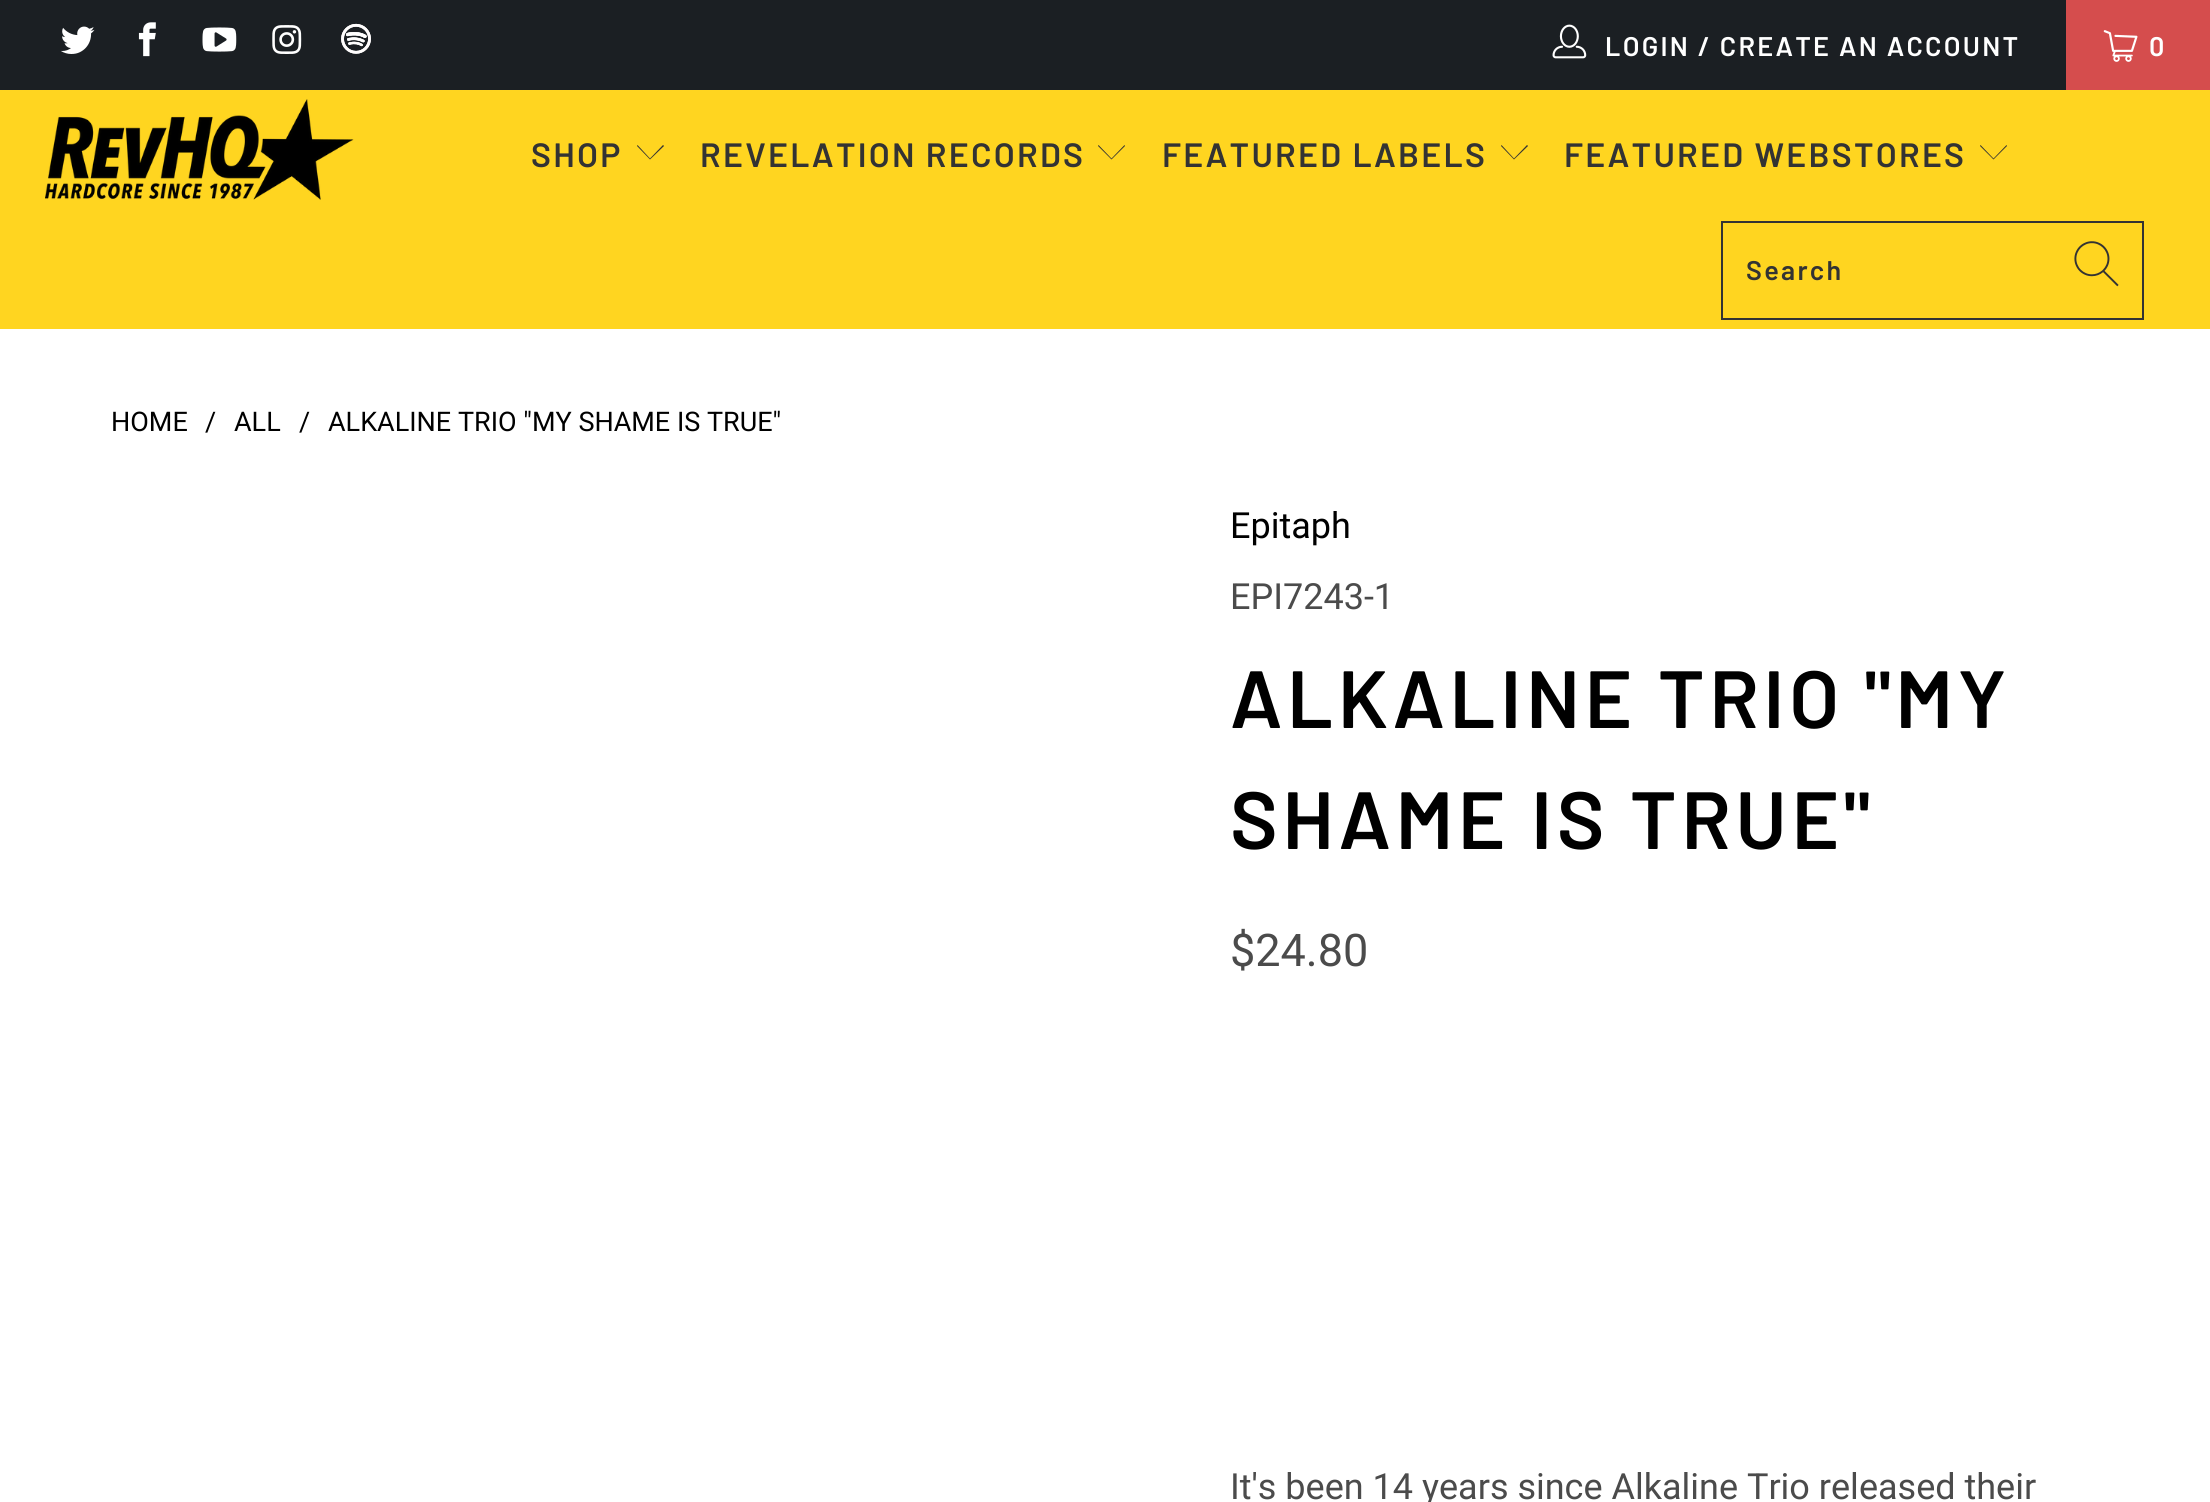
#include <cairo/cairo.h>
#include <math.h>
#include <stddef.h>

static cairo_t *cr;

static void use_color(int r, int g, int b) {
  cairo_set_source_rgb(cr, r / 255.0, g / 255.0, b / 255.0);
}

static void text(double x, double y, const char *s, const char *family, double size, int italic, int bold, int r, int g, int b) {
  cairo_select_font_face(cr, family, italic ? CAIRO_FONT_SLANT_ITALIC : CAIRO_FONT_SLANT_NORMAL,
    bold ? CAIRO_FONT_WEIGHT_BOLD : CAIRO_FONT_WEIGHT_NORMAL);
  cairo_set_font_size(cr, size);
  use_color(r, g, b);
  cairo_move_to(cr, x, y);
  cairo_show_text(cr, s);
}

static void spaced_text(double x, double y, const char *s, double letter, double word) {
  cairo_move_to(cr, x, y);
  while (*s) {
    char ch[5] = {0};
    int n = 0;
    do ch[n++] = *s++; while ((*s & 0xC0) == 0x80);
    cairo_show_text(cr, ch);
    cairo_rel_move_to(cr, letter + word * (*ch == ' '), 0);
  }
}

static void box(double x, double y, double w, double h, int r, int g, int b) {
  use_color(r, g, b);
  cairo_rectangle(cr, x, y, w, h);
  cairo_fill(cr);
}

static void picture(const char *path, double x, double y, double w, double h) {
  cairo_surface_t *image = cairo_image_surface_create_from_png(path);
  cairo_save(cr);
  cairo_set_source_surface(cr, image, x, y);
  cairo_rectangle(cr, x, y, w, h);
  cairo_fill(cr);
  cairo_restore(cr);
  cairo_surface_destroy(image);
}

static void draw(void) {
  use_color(255, 255, 255);
  cairo_paint(cr);
  box(0, 0, 2066, 90, 27, 31, 35);
  picture("img_01.png", 61, 26, 34, 28);
  picture("img_02.png", 138, 22, 18, 35);
  picture("img_03.png", 202, 27, 35, 25);
  picture("img_04.png", 272, 25, 30, 29);
  picture("img_05.png", 341, 23, 30, 31);
  picture("img_06.png", 1552, 24, 35, 35);
  box(2066, 0, 144, 90, 213, 77, 77);
  picture("img_07.png", 2103, 30, 35, 32);
  box(0, 90, 2210, 239, 255, 213, 32);
  picture("img_08.png", 45, 99, 309, 101);
  use_color(51, 51, 51);
  cairo_new_path(cr);
  cairo_move_to(cr, 650, 159.5);
  cairo_line_to(cr, 637, 146);
  cairo_line_to(cr, 637.5, 145);
  cairo_line_to(cr, 650, 158.5);
  cairo_line_to(cr, 663, 145);
  cairo_line_to(cr, 664, 146);
  cairo_close_path(cr);
  cairo_fill(cr);
  cairo_new_path(cr);
  cairo_move_to(cr, 1111.5, 159.5);
  cairo_line_to(cr, 1098, 146);
  cairo_line_to(cr, 1098.5, 145);
  cairo_line_to(cr, 1111.5, 158.5);
  cairo_line_to(cr, 1124.5, 145);
  cairo_line_to(cr, 1125, 146);
  cairo_close_path(cr);
  cairo_fill(cr);
  cairo_new_path(cr);
  cairo_move_to(cr, 1514, 159.5);
  cairo_line_to(cr, 1501, 146);
  cairo_line_to(cr, 1501.5, 145);
  cairo_line_to(cr, 1514, 158.5);
  cairo_line_to(cr, 1527, 145);
  cairo_line_to(cr, 1528, 146);
  cairo_close_path(cr);
  cairo_fill(cr);
  cairo_new_path(cr);
  cairo_move_to(cr, 1993.5, 159.5);
  cairo_line_to(cr, 1980, 146);
  cairo_line_to(cr, 1980.5, 145);
  cairo_line_to(cr, 1993.5, 158.5);
  cairo_line_to(cr, 2006.5, 145);
  cairo_line_to(cr, 2007, 146);
  cairo_close_path(cr);
  cairo_fill(cr);
  cairo_rectangle(cr, 1722, 222, 421, 97);
  cairo_stroke(cr);
  picture("img_09.png", 2074, 241, 45, 46);
  cairo_select_font_face(cr, "Barlow SemiBold", CAIRO_FONT_SLANT_NORMAL, CAIRO_FONT_WEIGHT_NORMAL);
  cairo_set_font_size(cr, 27);
  use_color(255, 255, 255);
  spaced_text(1605, 56, "LOGIN / CREATE AN ACCOUNT", 2.25, 0);
  spaced_text(2149, 56, "0", 2.25, 0);
  cairo_set_font_size(cr, 33.75);
  use_color(51, 51, 51);
  spaced_text(531, 167, "SHOP", 2.25, 0);
  spaced_text(700, 167, "REVELATION RECORDS", 2.25, 0);
  spaced_text(1162, 167, "FEATURED LABELS", 2.25, 0);
  spaced_text(1564, 167, "FEATURED WEBSTORES", 2.25, 0);
  cairo_set_font_size(cr, 27);
  spaced_text(1746, 280, "Search", 2.25, 0);
  text(111, 431, "HOME", "Roboto", 27, 0, 0, 0, 0, 0);
  text(205, 431, "/", "Roboto", 27, 0, 0, 0, 0, 0);
  text(234, 431, "ALL", "Roboto", 27, 0, 0, 0, 0, 0);
  text(299, 431, "/", "Roboto", 27, 0, 0, 0, 0, 0);
  text(328, 431, "ALKALINE TRIO \"MY SHAME IS TRUE\"", "Roboto", 27, 0, 0, 0, 0, 0);
  text(1230, 538, "Epitaph", "Roboto", 36, 0, 0, 0, 0, 0);
  text(1230, 609, "EPI7243-1", "Roboto", 36, 0, 0, 75, 75, 75);
  cairo_select_font_face(cr, "Barlow SemiBold", CAIRO_FONT_SLANT_NORMAL, CAIRO_FONT_WEIGHT_NORMAL);
  cairo_set_font_size(cr, 81);
  use_color(0, 0, 0);
  spaced_text(1230, 728, "ALKALINE TRIO \"MY", 4.5, 0);
  spaced_text(1230, 849, "SHAME IS TRUE\"", 4.5, 0);
  text(1230, 966, "$24.80", "Roboto", 45, 0, 0, 75, 75, 75);
  text(1230, 1499, "It's been 14 years since Alkaline Trio released their", "Roboto", 36, 0, 0, 75, 75, 75);
}

int main(void) {
  cairo_surface_t *surface = cairo_image_surface_create(CAIRO_FORMAT_RGB24, 2210, 1502);
  cr = cairo_create(surface);
  cairo_font_options_t *options = cairo_font_options_create();
  cairo_font_options_set_hint_metrics(options, CAIRO_HINT_METRICS_OFF);
  cairo_font_options_set_hint_style(options, CAIRO_HINT_STYLE_NONE);
  cairo_set_font_options(cr, options);
  cairo_set_miter_limit(cr, 4);
  draw();
  cairo_surface_write_to_png(surface, "out.png");
  cairo_font_options_destroy(options);
  cairo_destroy(cr);
  cairo_surface_destroy(surface);
  return 0;
}
